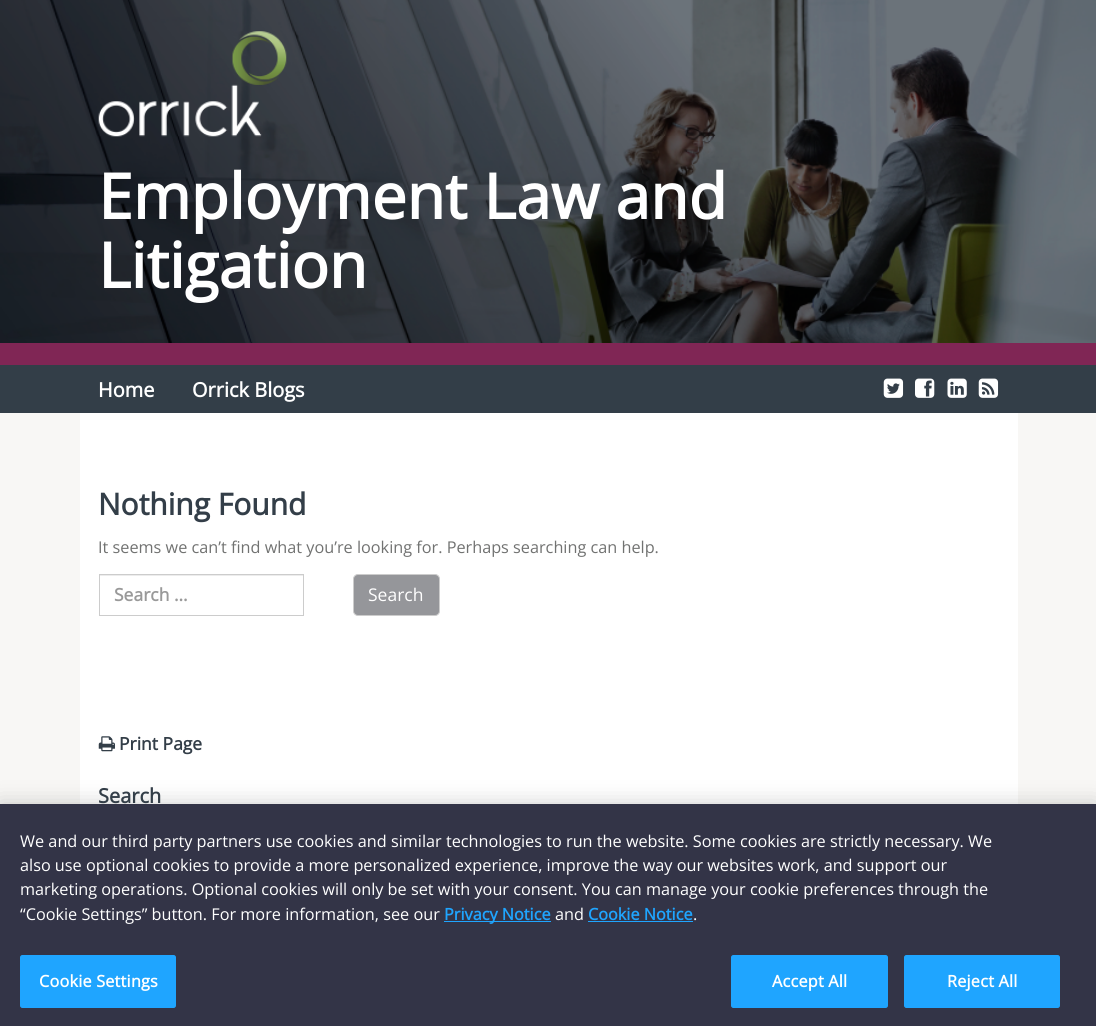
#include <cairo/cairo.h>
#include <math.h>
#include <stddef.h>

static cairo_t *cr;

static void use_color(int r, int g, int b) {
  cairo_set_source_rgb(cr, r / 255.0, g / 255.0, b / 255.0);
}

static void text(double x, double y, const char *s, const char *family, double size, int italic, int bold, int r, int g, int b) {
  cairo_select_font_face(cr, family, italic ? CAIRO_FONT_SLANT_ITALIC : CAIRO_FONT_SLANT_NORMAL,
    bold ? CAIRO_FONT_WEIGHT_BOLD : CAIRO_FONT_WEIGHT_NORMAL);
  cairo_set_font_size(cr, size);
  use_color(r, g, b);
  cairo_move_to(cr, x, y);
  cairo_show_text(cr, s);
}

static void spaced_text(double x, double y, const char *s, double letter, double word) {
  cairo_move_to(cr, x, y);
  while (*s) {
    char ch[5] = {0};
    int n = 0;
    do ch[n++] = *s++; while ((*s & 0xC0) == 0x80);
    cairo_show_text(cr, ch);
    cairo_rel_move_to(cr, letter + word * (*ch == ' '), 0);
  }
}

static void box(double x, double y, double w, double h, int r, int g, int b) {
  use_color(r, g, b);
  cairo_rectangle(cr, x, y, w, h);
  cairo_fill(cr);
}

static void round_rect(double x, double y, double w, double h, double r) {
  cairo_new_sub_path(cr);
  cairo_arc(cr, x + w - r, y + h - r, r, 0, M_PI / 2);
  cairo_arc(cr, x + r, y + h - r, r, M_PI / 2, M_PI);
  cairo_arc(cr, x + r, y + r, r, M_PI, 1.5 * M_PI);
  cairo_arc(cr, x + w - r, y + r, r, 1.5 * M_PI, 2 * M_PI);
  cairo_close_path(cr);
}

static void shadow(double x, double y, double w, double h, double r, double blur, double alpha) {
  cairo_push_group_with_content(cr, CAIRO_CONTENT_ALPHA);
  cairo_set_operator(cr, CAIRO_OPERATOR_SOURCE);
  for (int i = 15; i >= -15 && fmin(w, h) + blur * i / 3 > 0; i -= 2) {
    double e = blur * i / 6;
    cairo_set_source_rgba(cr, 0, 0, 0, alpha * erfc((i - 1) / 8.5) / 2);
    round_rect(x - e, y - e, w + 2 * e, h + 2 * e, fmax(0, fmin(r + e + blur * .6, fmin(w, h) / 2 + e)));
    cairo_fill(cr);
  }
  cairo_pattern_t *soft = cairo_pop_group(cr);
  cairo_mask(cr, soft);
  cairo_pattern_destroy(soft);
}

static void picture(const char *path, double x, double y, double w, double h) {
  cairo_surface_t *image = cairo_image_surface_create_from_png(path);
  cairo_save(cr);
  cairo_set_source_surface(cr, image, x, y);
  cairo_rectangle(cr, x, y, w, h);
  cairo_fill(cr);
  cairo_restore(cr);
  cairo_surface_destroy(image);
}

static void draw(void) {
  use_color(248, 247, 245);
  cairo_paint(cr);
  picture("img_01.png", 0, 0, 1096, 343);
  box(0, 343, 1096, 22, 128, 38, 85);
  picture("img_02.png", 98, 31, 189, 106);
  box(0, 365, 1096, 48, 51, 62, 72);
  picture("img_03.png", 883, 378, 21, 20);
  picture("img_04.png", 915, 378, 20, 20);
  picture("img_05.png", 947, 378, 20, 20);
  picture("img_06.png", 978, 378, 21, 20);
  box(80, 413, 938, 391, 255, 255, 255);
  box(100, 575, 203, 1, 236, 236, 236);
  cairo_rectangle(cr, 99.5, 574.5, 204, 41);
  use_color(204, 204, 204);
  cairo_set_line_width(cr, 1);
  cairo_stroke(cr);
  use_color(149, 150, 154);
  round_rect(353.5, 574.5, 86, 41, 4.5);
  cairo_fill_preserve(cr);
  use_color(204, 204, 204);
  cairo_stroke(cr);
  picture("img_07.png", 98, 736, 17, 16);
  use_color(0, 0, 0);
  shadow(0, 804, 1096, 222, 0, 11, 0.2);
  box(0, 804, 1096, 222, 51, 52, 71);
  box(444, 921, 107, 1, 31, 165, 255);
  box(588, 921, 105, 1, 31, 165, 255);
  round_rect(20.5, 955.5, 155, 52, 2);
  cairo_fill_preserve(cr);
  cairo_stroke(cr);
  round_rect(731.5, 955.5, 156, 52, 2);
  cairo_fill_preserve(cr);
  cairo_stroke(cr);
  round_rect(904.5, 955.5, 155, 52, 2);
  cairo_fill_preserve(cr);
  cairo_stroke(cr);
  text(98, 219, "Employment Law and", "Open Sans", 62.5, 0, 1, 255, 255, 255);
  text(98, 288, "Litigation", "Open Sans", 62.5, 0, 1, 255, 255, 255);
  text(98, 397, "Home", "Open Sans", 20, 0, 1, 255, 255, 255);
  text(192, 397, "Orrick Blogs", "Open Sans", 20, 0, 1, 255, 255, 255);
  text(98, 515, "Nothing Found", "Open Sans", 30, 0, 1, 51, 62, 72);
  text(98, 553, "It seems we can’t find what you’re looking for. Perhaps searching can help.", "Open Sans", 16.25, 0, 0, 113, 114, 113);
  text(114, 601, "Search …", "Open Sans", 17.5, 0, 1, 153, 153, 153);
  text(368, 601, "Search", "Open Sans", 17.5, 0, 0, 255, 255, 255);
  text(119, 750, "Print Page", "Open Sans", 17.5, 0, 1, 51, 62, 72);
  text(98, 803, "Search", "Open Sans", 20, 0, 1, 51, 62, 72);
  text(20, 847, "We and our third party partners use cookies and similar technologies to run the website. Some cookies are strictly necessary. We", "Open Sans", 16.25, 0, 0, 255, 255, 255);
  text(20, 871, "also use optional cookies to provide a more personalized experience, improve the way our websites work, and support our", "Open Sans", 16.25, 0, 0, 255, 255, 255);
  text(20, 895, "marketing operations. Optional cookies will only be set with your consent. You can manage your cookie preferences through the", "Open Sans", 16.25, 0, 0, 255, 255, 255);
  text(20, 920, "“Cookie Settings” button. For more information, see our", "Open Sans", 16.25, 0, 0, 255, 255, 255);
  text(444, 920, "Privacy Notice", "Open Sans", 16.25, 0, 1, 31, 165, 255);
  text(555, 920, "and", "Open Sans", 16.25, 0, 0, 255, 255, 255);
  text(588, 920, "Cookie Notice", "Open Sans", 16.25, 0, 1, 31, 165, 255);
  text(693, 920, ".", "Open Sans", 16.25, 0, 0, 255, 255, 255);
  cairo_select_font_face(cr, "Open Sans", CAIRO_FONT_SLANT_NORMAL, CAIRO_FONT_WEIGHT_BOLD);
  spaced_text(39, 987, "Cookie Settings", 0.2, 0);
  spaced_text(772, 987, "Accept All", 0.2, 0);
  spaced_text(947, 987, "Reject All", 0.2, 0);
}

int main(void) {
  cairo_surface_t *surface = cairo_image_surface_create(CAIRO_FORMAT_RGB24, 1096, 1026);
  cr = cairo_create(surface);
  cairo_font_options_t *options = cairo_font_options_create();
  cairo_font_options_set_hint_metrics(options, CAIRO_HINT_METRICS_OFF);
  cairo_font_options_set_hint_style(options, CAIRO_HINT_STYLE_NONE);
  cairo_set_font_options(cr, options);
  cairo_set_miter_limit(cr, 4);
  draw();
  cairo_surface_write_to_png(surface, "out.png");
  cairo_font_options_destroy(options);
  cairo_destroy(cr);
  cairo_surface_destroy(surface);
  return 0;
}
